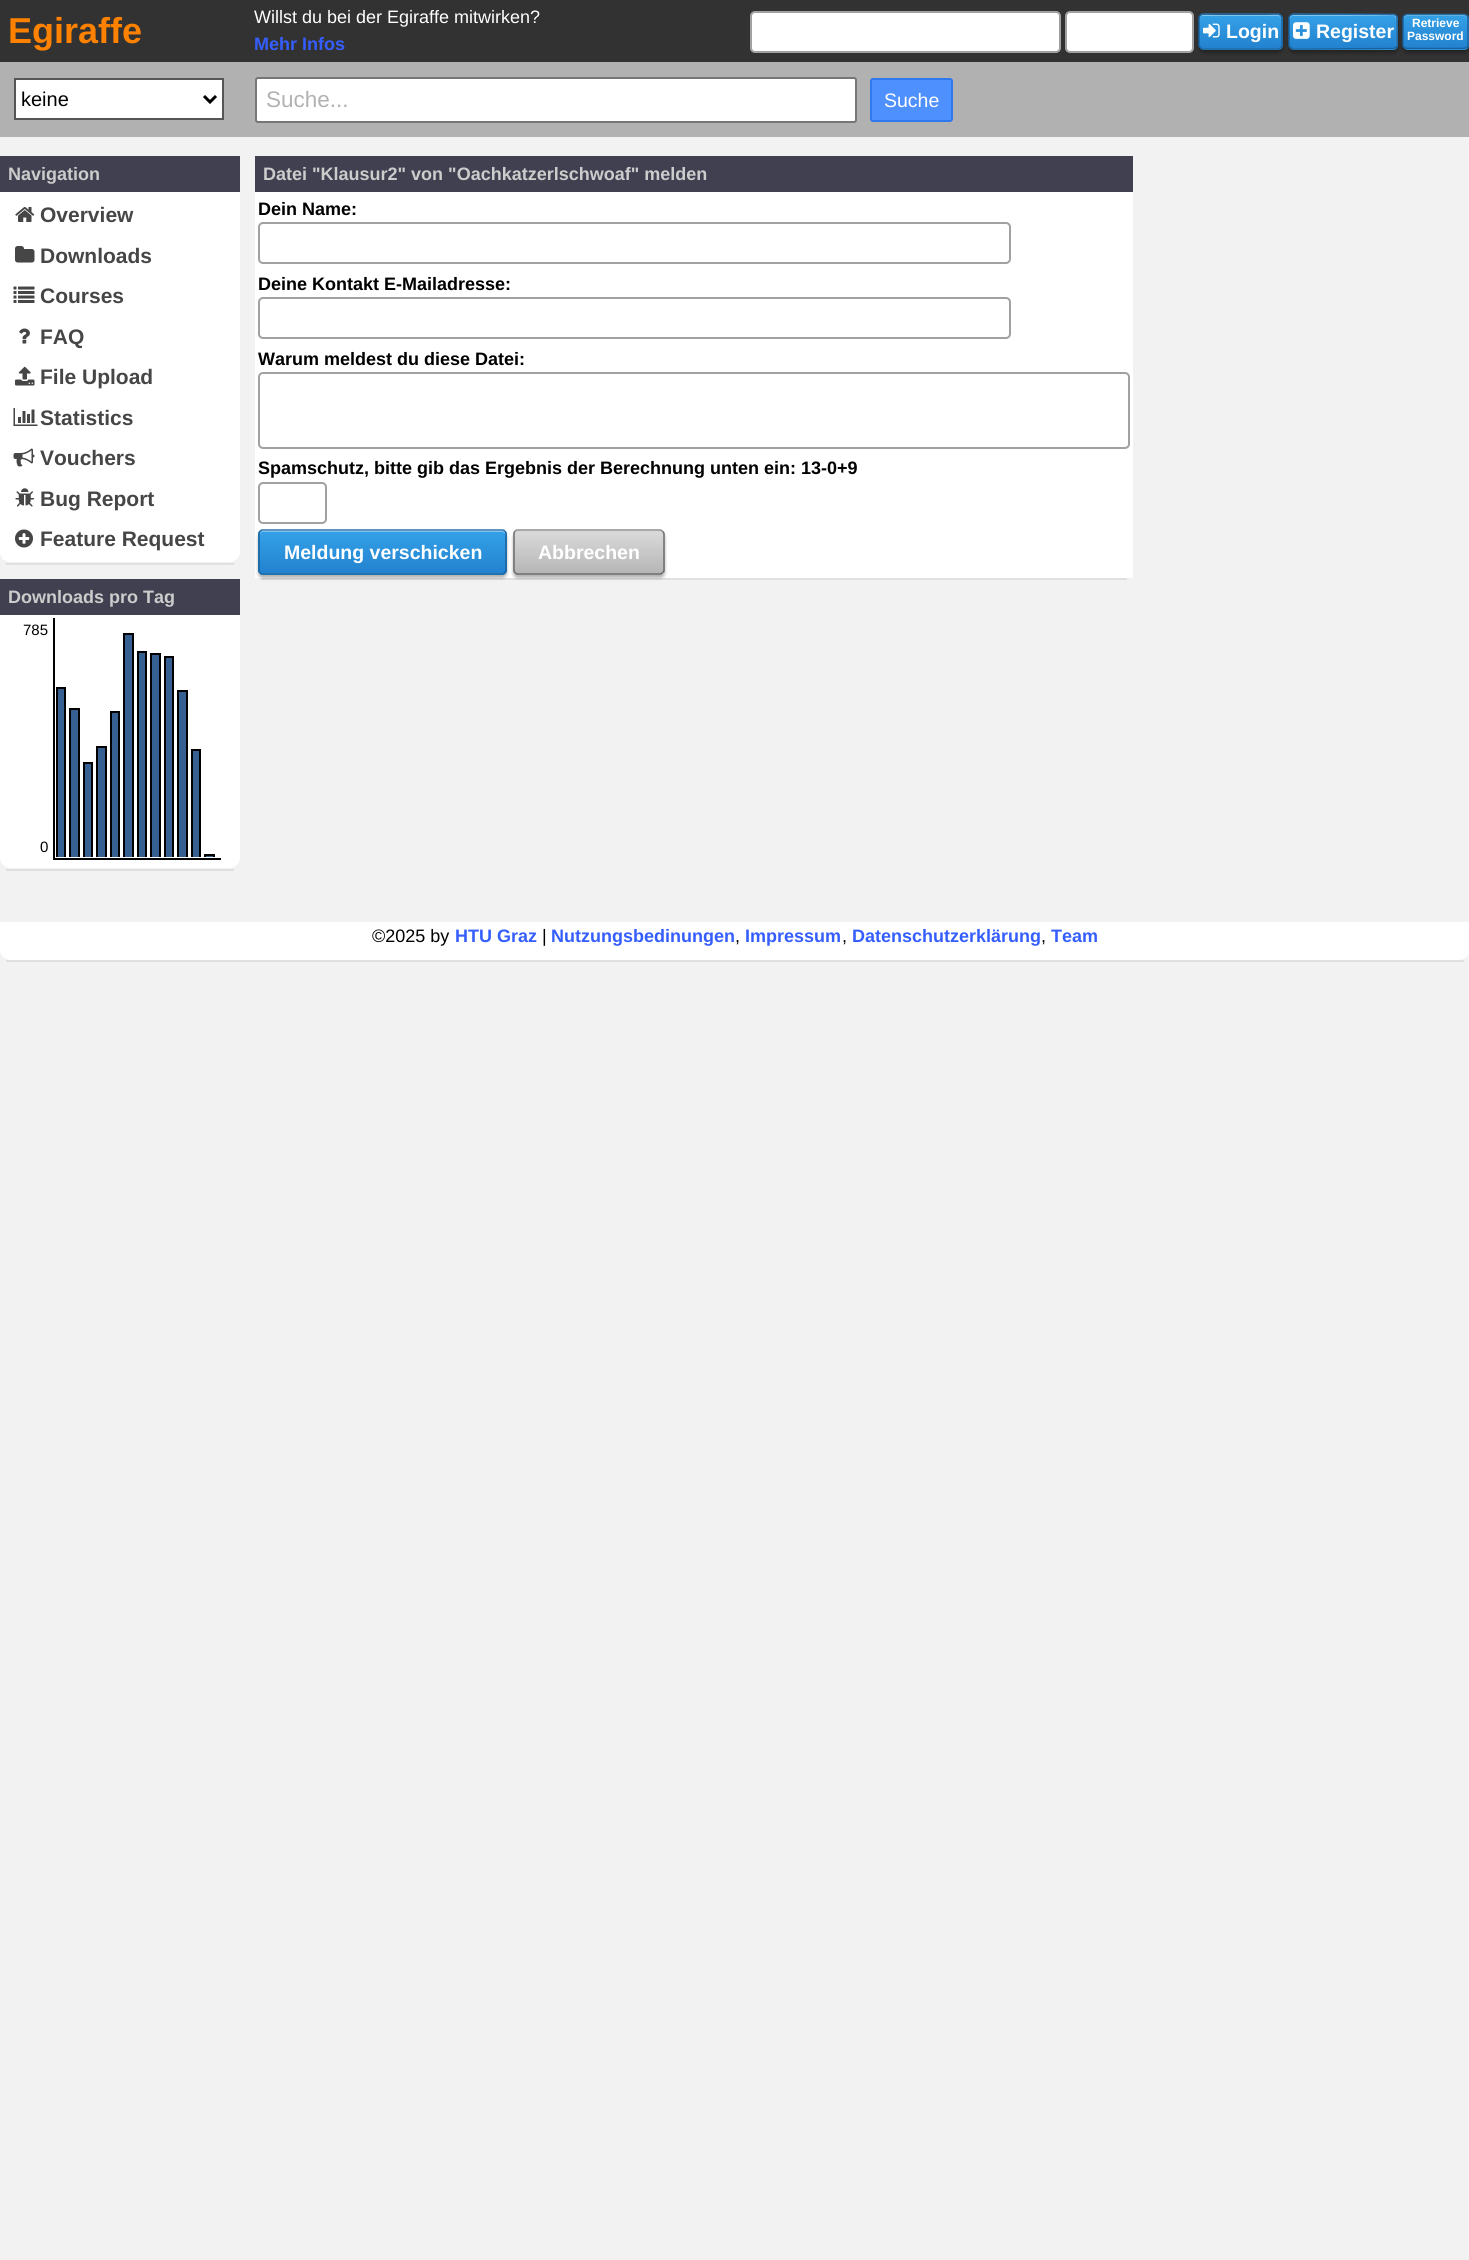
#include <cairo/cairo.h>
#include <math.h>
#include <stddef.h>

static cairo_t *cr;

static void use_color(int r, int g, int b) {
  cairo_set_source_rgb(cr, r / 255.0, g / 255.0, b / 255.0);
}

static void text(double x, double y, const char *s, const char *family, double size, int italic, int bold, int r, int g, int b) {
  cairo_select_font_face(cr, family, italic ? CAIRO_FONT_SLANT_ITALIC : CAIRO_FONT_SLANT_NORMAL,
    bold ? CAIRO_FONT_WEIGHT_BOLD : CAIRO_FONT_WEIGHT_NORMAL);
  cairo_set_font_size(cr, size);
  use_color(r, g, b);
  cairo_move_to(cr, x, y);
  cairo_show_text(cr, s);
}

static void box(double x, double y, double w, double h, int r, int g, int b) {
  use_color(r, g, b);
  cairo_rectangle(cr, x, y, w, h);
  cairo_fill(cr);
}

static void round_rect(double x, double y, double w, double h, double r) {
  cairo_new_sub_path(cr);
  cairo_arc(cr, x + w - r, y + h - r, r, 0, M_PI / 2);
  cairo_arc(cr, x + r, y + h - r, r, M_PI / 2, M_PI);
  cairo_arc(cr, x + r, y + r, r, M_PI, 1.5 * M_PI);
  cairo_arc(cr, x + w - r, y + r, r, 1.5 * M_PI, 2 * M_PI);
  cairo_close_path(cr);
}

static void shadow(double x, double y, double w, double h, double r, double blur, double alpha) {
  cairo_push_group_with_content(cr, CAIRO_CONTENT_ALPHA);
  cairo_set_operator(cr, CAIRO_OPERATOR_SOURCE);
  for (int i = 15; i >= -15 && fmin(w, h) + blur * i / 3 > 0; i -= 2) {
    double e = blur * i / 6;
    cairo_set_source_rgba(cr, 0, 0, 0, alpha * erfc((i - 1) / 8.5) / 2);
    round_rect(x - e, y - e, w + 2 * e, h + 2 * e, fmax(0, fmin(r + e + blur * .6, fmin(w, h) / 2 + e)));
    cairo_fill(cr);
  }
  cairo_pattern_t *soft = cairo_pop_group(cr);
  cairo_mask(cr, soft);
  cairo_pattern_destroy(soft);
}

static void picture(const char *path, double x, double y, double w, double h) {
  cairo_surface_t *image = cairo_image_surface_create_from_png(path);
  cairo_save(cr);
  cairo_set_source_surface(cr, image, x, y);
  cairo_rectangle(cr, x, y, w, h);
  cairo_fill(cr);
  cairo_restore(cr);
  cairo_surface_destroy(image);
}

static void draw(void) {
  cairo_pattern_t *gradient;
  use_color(242, 242, 242);
  cairo_paint(cr);
  box(0, 0, 1469, 62, 50, 50, 50);
  use_color(255, 255, 255);
  round_rect(751, 12, 309, 40, 4);
  cairo_fill_preserve(cr);
  use_color(161, 161, 161);
  cairo_stroke(cr);
  use_color(255, 255, 255);
  round_rect(1066, 12, 127, 40, 4);
  cairo_fill_preserve(cr);
  use_color(161, 161, 161);
  cairo_stroke(cr);
  use_color(0, 0, 0);
  shadow(1199, 17, 84, 36, 5, 1.5, 0.3);
  cairo_save(cr);
  round_rect(1199, 14, 84, 36, 5);
  cairo_clip(cr);
  gradient = cairo_pattern_create_linear(1200, 15, 1200, 48);
  cairo_pattern_add_color_stop_rgba(gradient, 0, 0.204, 0.631, 0.906, 1);
  cairo_pattern_add_color_stop_rgba(gradient, 1, 0.137, 0.51, 0.812, 1);
  cairo_set_source(cr, gradient);
  cairo_pattern_destroy(gradient);
  cairo_rectangle(cr, 1199, 15, 84, 33);
  cairo_fill(cr);
  gradient = cairo_pattern_create_linear(1200, 48, 1200, 81);
  cairo_pattern_add_color_stop_rgba(gradient, 0, 0.204, 0.631, 0.906, 1);
  cairo_pattern_add_color_stop_rgba(gradient, 1, 0.137, 0.51, 0.812, 1);
  cairo_set_source(cr, gradient);
  cairo_pattern_destroy(gradient);
  cairo_rectangle(cr, 1199, 48, 84, 2);
  cairo_fill(cr);
  cairo_restore(cr);
  use_color(128, 197, 240);
  cairo_new_path(cr);
  cairo_move_to(cr, 1203, 16);
  cairo_line_to(cr, 1278, 16);
  cairo_curve_to(cr, 1280, 16, 1281, 18, 1281, 20);
  cairo_curve_to(cr, 1281, 12, 1273, 15, 1266, 15);
  cairo_line_to(cr, 1216, 15);
  cairo_curve_to(cr, 1208, 15, 1200, 12, 1200, 20);
  cairo_curve_to(cr, 1200, 18, 1201, 16, 1203, 16);
  cairo_close_path(cr);
  cairo_fill(cr);
  cairo_new_path(cr);
  cairo_move_to(cr, 1200.5, 15.5);
  cairo_curve_to(cr, 1201, 14.5, 1202, 14, 1203, 14);
  cairo_line_to(cr, 1278, 14);
  cairo_curve_to(cr, 1279, 14, 1280, 14.5, 1280.5, 15.5);
  use_color(35, 111, 172);
  cairo_set_line_width(cr, 1.5);
  cairo_stroke(cr);
  cairo_new_path(cr);
  cairo_move_to(cr, 1280.5, 15.5);
  cairo_curve_to(cr, 1281.5, 16, 1282, 17, 1282, 18);
  cairo_line_to(cr, 1282, 45);
  cairo_curve_to(cr, 1282, 46, 1281.5, 47, 1280.5, 47.5);
  use_color(25, 98, 157);
  cairo_stroke(cr);
  cairo_new_path(cr);
  cairo_move_to(cr, 1280.5, 47.5);
  cairo_curve_to(cr, 1280, 48.5, 1279, 49, 1278, 49);
  cairo_line_to(cr, 1203, 49);
  cairo_curve_to(cr, 1202, 49, 1201, 48.5, 1200.5, 47.5);
  use_color(24, 97, 156);
  cairo_stroke(cr);
  cairo_new_path(cr);
  cairo_move_to(cr, 1200.5, 47.5);
  cairo_curve_to(cr, 1199.5, 47, 1199, 46, 1199, 45);
  cairo_line_to(cr, 1199, 18);
  cairo_curve_to(cr, 1199, 17, 1199.5, 16, 1200.5, 15.5);
  use_color(25, 98, 157);
  cairo_stroke(cr);
  picture("img_01.png", 1203, 23, 17, 15);
  use_color(0, 0, 0);
  shadow(1289, 17, 109, 36, 5, 1.5, 0.3);
  cairo_save(cr);
  round_rect(1289, 14, 109, 36, 5);
  cairo_clip(cr);
  gradient = cairo_pattern_create_linear(1290, 15, 1290, 48);
  cairo_pattern_add_color_stop_rgba(gradient, 0, 0.204, 0.631, 0.906, 1);
  cairo_pattern_add_color_stop_rgba(gradient, 1, 0.137, 0.51, 0.812, 1);
  cairo_set_source(cr, gradient);
  cairo_pattern_destroy(gradient);
  cairo_rectangle(cr, 1289, 15, 109, 33);
  cairo_fill(cr);
  gradient = cairo_pattern_create_linear(1290, 48, 1290, 81);
  cairo_pattern_add_color_stop_rgba(gradient, 0, 0.204, 0.631, 0.906, 1);
  cairo_pattern_add_color_stop_rgba(gradient, 1, 0.137, 0.51, 0.812, 1);
  cairo_set_source(cr, gradient);
  cairo_pattern_destroy(gradient);
  cairo_rectangle(cr, 1289, 48, 109, 2);
  cairo_fill(cr);
  cairo_restore(cr);
  use_color(128, 197, 240);
  cairo_new_path(cr);
  cairo_move_to(cr, 1293, 16);
  cairo_line_to(cr, 1377, 16);
  cairo_curve_to(cr, 1398, 16, 1396, 12, 1396, 29);
  cairo_line_to(cr, 1396, 47);
  cairo_curve_to(cr, 1397, 47, 1397, 46, 1397, 45);
  cairo_line_to(cr, 1397, 18);
  cairo_curve_to(cr, 1397, 16, 1396, 15, 1394, 15);
  cairo_line_to(cr, 1293, 15);
  cairo_curve_to(cr, 1291, 15, 1290, 16, 1290, 18);
  cairo_line_to(cr, 1290, 20);
  cairo_curve_to(cr, 1290, 18, 1291, 16, 1293, 16);
  cairo_close_path(cr);
  cairo_fill(cr);
  cairo_new_path(cr);
  cairo_move_to(cr, 1290.5, 15.5);
  cairo_line_to(cr, 1293, 14);
  cairo_line_to(cr, 1394, 14.5);
  cairo_line_to(cr, 1396, 15.5);
  use_color(35, 111, 172);
  cairo_stroke(cr);
  cairo_new_path(cr);
  cairo_move_to(cr, 1396, 15.5);
  cairo_curve_to(cr, 1397, 16, 1397, 17, 1397, 18);
  cairo_line_to(cr, 1397, 45);
  cairo_curve_to(cr, 1397, 46, 1397, 47, 1396, 47.5);
  use_color(25, 98, 157);
  cairo_stroke(cr);
  cairo_new_path(cr);
  cairo_move_to(cr, 1396, 47.5);
  cairo_line_to(cr, 1394, 48.5);
  cairo_line_to(cr, 1310, 49);
  cairo_line_to(cr, 1293, 49);
  cairo_line_to(cr, 1290.5, 47.5);
  use_color(24, 97, 156);
  cairo_stroke(cr);
  cairo_new_path(cr);
  cairo_move_to(cr, 1290.5, 47.5);
  cairo_curve_to(cr, 1289.5, 47, 1289, 46, 1289, 45);
  cairo_line_to(cr, 1289, 18);
  cairo_curve_to(cr, 1289, 17, 1289.5, 16, 1290.5, 15.5);
  use_color(25, 98, 157);
  cairo_stroke(cr);
  picture("img_02.png", 1293, 22, 17, 17);
  use_color(0, 0, 0);
  shadow(1403, 17, 66, 36, 5, 1.5, 0.3);
  cairo_save(cr);
  round_rect(1403, 14, 66, 36, 5);
  cairo_clip(cr);
  gradient = cairo_pattern_create_linear(1404, 15, 1404, 48);
  cairo_pattern_add_color_stop_rgba(gradient, 0, 0.204, 0.631, 0.906, 1);
  cairo_pattern_add_color_stop_rgba(gradient, 1, 0.137, 0.51, 0.812, 1);
  cairo_set_source(cr, gradient);
  cairo_pattern_destroy(gradient);
  cairo_rectangle(cr, 1403, 15, 66, 33);
  cairo_fill(cr);
  gradient = cairo_pattern_create_linear(1404, 48, 1404, 81);
  cairo_pattern_add_color_stop_rgba(gradient, 0, 0.204, 0.631, 0.906, 1);
  cairo_pattern_add_color_stop_rgba(gradient, 1, 0.137, 0.51, 0.812, 1);
  cairo_set_source(cr, gradient);
  cairo_pattern_destroy(gradient);
  cairo_rectangle(cr, 1403, 48, 66, 2);
  cairo_fill(cr);
  cairo_restore(cr);
  use_color(128, 197, 240);
  cairo_new_path(cr);
  cairo_move_to(cr, 1407, 16);
  cairo_line_to(cr, 1464, 16);
  cairo_curve_to(cr, 1466, 16, 1467, 18, 1467, 20);
  cairo_curve_to(cr, 1467, 12, 1462, 15, 1454, 15);
  cairo_line_to(cr, 1416, 15);
  cairo_curve_to(cr, 1409, 15, 1404, 12, 1404, 20);
  cairo_curve_to(cr, 1404, 18, 1405, 16, 1407, 16);
  cairo_close_path(cr);
  cairo_fill(cr);
  cairo_new_path(cr);
  cairo_move_to(cr, 1404.5, 15.5);
  cairo_line_to(cr, 1406.5, 14.5);
  cairo_line_to(cr, 1464.5, 14.5);
  cairo_line_to(cr, 1466.5, 15.5);
  use_color(35, 111, 172);
  cairo_stroke(cr);
  cairo_new_path(cr);
  cairo_move_to(cr, 1466.5, 15.5);
  cairo_curve_to(cr, 1467.5, 16, 1468, 17, 1468, 18);
  cairo_line_to(cr, 1468, 45);
  cairo_curve_to(cr, 1468, 46, 1467.5, 47, 1466.5, 47.5);
  use_color(25, 98, 157);
  cairo_stroke(cr);
  cairo_new_path(cr);
  cairo_move_to(cr, 1466.5, 47.5);
  cairo_line_to(cr, 1464.5, 48.5);
  cairo_line_to(cr, 1406.5, 48.5);
  cairo_line_to(cr, 1404.5, 47.5);
  use_color(24, 97, 156);
  cairo_stroke(cr);
  cairo_new_path(cr);
  cairo_move_to(cr, 1404.5, 47.5);
  cairo_curve_to(cr, 1403.5, 47, 1403, 46, 1403, 45);
  cairo_line_to(cr, 1403, 18);
  cairo_curve_to(cr, 1403, 17, 1403.5, 16, 1404.5, 15.5);
  use_color(25, 98, 157);
  cairo_stroke(cr);
  box(0, 62, 1469, 75, 177, 177, 177);
  use_color(255, 255, 255);
  cairo_rectangle(cr, 15, 79, 208, 40);
  cairo_fill_preserve(cr);
  use_color(85, 85, 85);
  cairo_set_line_width(cr, 2);
  cairo_stroke(cr);
  cairo_new_path(cr);
  cairo_move_to(cr, 204, 96);
  cairo_line_to(cr, 210, 102);
  cairo_line_to(cr, 216, 96);
  use_color(0, 0, 0);
  cairo_set_line_width(cr, 3);
  cairo_stroke(cr);
  use_color(255, 255, 255);
  round_rect(256, 78, 600, 44, 2);
  cairo_fill_preserve(cr);
  use_color(118, 118, 118);
  cairo_set_line_width(cr, 2);
  cairo_stroke(cr);
  use_color(77, 144, 254);
  round_rect(871, 79, 81, 42, 2);
  cairo_fill_preserve(cr);
  use_color(48, 121, 237);
  cairo_stroke(cr);
  use_color(255, 255, 255);
  cairo_new_path(cr);
  cairo_move_to(cr, 0, 156);
  cairo_line_to(cr, 240, 156);
  cairo_line_to(cr, 240, 552);
  cairo_curve_to(cr, 240, 558, 235, 562, 228, 562);
  cairo_line_to(cr, 12, 562);
  cairo_curve_to(cr, 5, 562, 0, 558, 0, 552);
  cairo_close_path(cr);
  cairo_fill(cr);
  box(6, 563, 228, 2, 224, 224, 224);
  box(0, 156, 240, 36, 64, 64, 80);
  picture("img_03.png", 15, 207, 20, 15);
  picture("img_04.png", 15, 246, 20, 17);
  picture("img_05.png", 13, 286, 22, 17);
  picture("img_06.png", 19, 328, 11, 16);
  picture("img_07.png", 15, 366, 20, 20);
  picture("img_08.png", 13, 408, 25, 18);
  picture("img_09.png", 13, 448, 22, 19);
  picture("img_10.png", 15, 488, 20, 19);
  box(3, 559, 1, 1, 255, 255, 255);
  picture("img_11.png", 15, 529, 18, 19);
  cairo_new_path(cr);
  cairo_move_to(cr, 0, 579);
  cairo_line_to(cr, 240, 579);
  cairo_line_to(cr, 240, 858);
  cairo_curve_to(cr, 240, 864, 235, 868, 228, 868);
  cairo_line_to(cr, 12, 868);
  cairo_curve_to(cr, 5, 868, 0, 864, 0, 858);
  cairo_close_path(cr);
  cairo_fill(cr);
  box(6, 869, 228, 2, 224, 224, 224);
  box(0, 579, 240, 36, 64, 64, 80);
  box(53, 858, 168, 2, 0, 0, 0);
  box(53, 618, 2, 242, 0, 0, 0);
  box(58, 689, 6, 168, 55, 96, 146);
  cairo_save(cr);
  cairo_rectangle(cr, 56, 618, 163, 239);
  cairo_clip(cr);
  cairo_rectangle(cr, 57, 688, 8, 172);
  use_color(0, 0, 0);
  cairo_stroke(cr);
  cairo_restore(cr);
  box(71, 710, 7, 147, 55, 96, 146);
  cairo_save(cr);
  cairo_rectangle(cr, 56, 618, 163, 239);
  cairo_clip(cr);
  cairo_rectangle(cr, 70, 709, 9, 151);
  use_color(0, 0, 0);
  cairo_stroke(cr);
  cairo_restore(cr);
  box(85, 764, 6, 93, 55, 96, 146);
  cairo_save(cr);
  cairo_rectangle(cr, 56, 618, 163, 239);
  cairo_clip(cr);
  cairo_rectangle(cr, 84, 763, 8, 97);
  use_color(0, 0, 0);
  cairo_stroke(cr);
  cairo_restore(cr);
  box(98, 748, 7, 109, 55, 96, 146);
  cairo_save(cr);
  cairo_rectangle(cr, 56, 618, 163, 239);
  cairo_clip(cr);
  cairo_rectangle(cr, 97, 747, 9, 113);
  use_color(0, 0, 0);
  cairo_stroke(cr);
  cairo_restore(cr);
  box(112, 713, 6, 144, 55, 96, 146);
  cairo_save(cr);
  cairo_rectangle(cr, 56, 618, 163, 239);
  cairo_clip(cr);
  cairo_rectangle(cr, 111, 712, 8, 148);
  use_color(0, 0, 0);
  cairo_stroke(cr);
  cairo_restore(cr);
  box(125, 635, 7, 222, 55, 96, 146);
  cairo_save(cr);
  cairo_rectangle(cr, 56, 618, 163, 239);
  cairo_clip(cr);
  cairo_rectangle(cr, 124, 634, 9, 226);
  use_color(0, 0, 0);
  cairo_stroke(cr);
  cairo_restore(cr);
  box(139, 653, 6, 204, 55, 96, 146);
  cairo_save(cr);
  cairo_rectangle(cr, 56, 618, 163, 239);
  cairo_clip(cr);
  cairo_rectangle(cr, 138, 652, 8, 208);
  use_color(0, 0, 0);
  cairo_stroke(cr);
  cairo_restore(cr);
  box(152, 655, 7, 202, 55, 96, 146);
  cairo_save(cr);
  cairo_rectangle(cr, 56, 618, 163, 239);
  cairo_clip(cr);
  cairo_rectangle(cr, 151, 654, 9, 206);
  use_color(0, 0, 0);
  cairo_stroke(cr);
  cairo_restore(cr);
  box(166, 658, 6, 199, 55, 96, 146);
  cairo_save(cr);
  cairo_rectangle(cr, 56, 618, 163, 239);
  cairo_clip(cr);
  cairo_rectangle(cr, 165, 657, 8, 203);
  use_color(0, 0, 0);
  cairo_stroke(cr);
  cairo_restore(cr);
  box(179, 692, 7, 165, 55, 96, 146);
  cairo_save(cr);
  cairo_rectangle(cr, 56, 618, 163, 239);
  cairo_clip(cr);
  cairo_rectangle(cr, 178, 691, 9, 169);
  use_color(0, 0, 0);
  cairo_stroke(cr);
  cairo_restore(cr);
  box(193, 751, 6, 106, 55, 96, 146);
  cairo_save(cr);
  cairo_rectangle(cr, 56, 618, 163, 239);
  cairo_clip(cr);
  cairo_rectangle(cr, 192, 750, 8, 110);
  use_color(0, 0, 0);
  cairo_stroke(cr);
  cairo_restore(cr);
  box(204, 856, 11, 1, 55, 96, 146);
  cairo_save(cr);
  cairo_rectangle(cr, 56, 618, 163, 239);
  cairo_clip(cr);
  cairo_rectangle(cr, 205, 855, 9, 5);
  use_color(0, 0, 0);
  cairo_stroke(cr);
  cairo_restore(cr);
  box(261, 578, 866, 2, 224, 224, 224);
  box(255, 156, 878, 36, 64, 64, 80);
  box(255, 192, 878, 386, 255, 255, 255);
  round_rect(259, 223, 751, 40, 4);
  use_color(161, 161, 161);
  cairo_stroke(cr);
  round_rect(259, 298, 751, 40, 4);
  cairo_stroke(cr);
  round_rect(259, 373, 870, 75, 4);
  cairo_stroke(cr);
  round_rect(259, 483, 67, 40, 4);
  cairo_stroke(cr);
  use_color(0, 0, 0);
  shadow(258, 533, 249, 45, 5, 1.5, 0.3);
  cairo_save(cr);
  round_rect(258, 530, 249, 45, 5);
  cairo_clip(cr);
  gradient = cairo_pattern_create_linear(260, 531, 260, 573);
  cairo_pattern_add_color_stop_rgba(gradient, 0, 0.204, 0.631, 0.906, 1);
  cairo_pattern_add_color_stop_rgba(gradient, 1, 0.137, 0.51, 0.812, 1);
  cairo_set_source(cr, gradient);
  cairo_pattern_destroy(gradient);
  cairo_rectangle(cr, 258, 531, 249, 42);
  cairo_fill(cr);
  gradient = cairo_pattern_create_linear(260, 573, 260, 615);
  cairo_pattern_add_color_stop_rgba(gradient, 0, 0.204, 0.631, 0.906, 1);
  cairo_pattern_add_color_stop_rgba(gradient, 1, 0.137, 0.51, 0.812, 1);
  cairo_set_source(cr, gradient);
  cairo_pattern_destroy(gradient);
  cairo_rectangle(cr, 258, 573, 249, 2);
  cairo_fill(cr);
  cairo_restore(cr);
  use_color(128, 197, 240);
  cairo_new_path(cr);
  cairo_move_to(cr, 262, 532);
  cairo_line_to(cr, 502, 532);
  cairo_curve_to(cr, 504, 532, 506, 534, 506, 536);
  cairo_curve_to(cr, 506, 534, 506, 531, 503, 531);
  cairo_line_to(cr, 263, 531);
  cairo_curve_to(cr, 260, 531, 260, 534, 260, 536);
  cairo_curve_to(cr, 260, 534, 261, 532, 262, 532);
  cairo_close_path(cr);
  cairo_fill(cr);
  cairo_new_path(cr);
  cairo_move_to(cr, 260, 531.5);
  cairo_curve_to(cr, 260.5, 530.5, 261.5, 530, 262.5, 530);
  cairo_line_to(cr, 502.5, 530);
  cairo_curve_to(cr, 503.5, 530, 504.5, 530.5, 505, 531.5);
  use_color(35, 111, 172);
  cairo_set_line_width(cr, 1.5);
  cairo_stroke(cr);
  cairo_new_path(cr);
  cairo_move_to(cr, 505, 531.5);
  cairo_curve_to(cr, 506, 532, 506, 533, 506, 534);
  cairo_line_to(cr, 506, 570);
  cairo_curve_to(cr, 506, 571, 506, 572, 505, 572.5);
  use_color(25, 98, 157);
  cairo_stroke(cr);
  cairo_new_path(cr);
  cairo_move_to(cr, 505, 572.5);
  cairo_curve_to(cr, 504.5, 573.5, 503.5, 574, 502.5, 574);
  cairo_line_to(cr, 262.5, 574);
  cairo_curve_to(cr, 261.5, 574, 260.5, 573.5, 260, 572.5);
  use_color(24, 97, 156);
  cairo_stroke(cr);
  cairo_new_path(cr);
  cairo_move_to(cr, 260, 572.5);
  cairo_curve_to(cr, 259, 572, 259, 571, 259, 570);
  cairo_line_to(cr, 259, 534);
  cairo_curve_to(cr, 259, 533, 259, 532, 260, 531.5);
  use_color(25, 98, 157);
  cairo_stroke(cr);
  use_color(0, 0, 0);
  shadow(513, 533, 152, 45, 5, 1.5, 0.3);
  cairo_save(cr);
  round_rect(513, 530, 152, 45, 5);
  cairo_clip(cr);
  gradient = cairo_pattern_create_linear(515, 531, 515, 573);
  cairo_pattern_add_color_stop_rgba(gradient, 0, 0.855, 0.855, 0.855, 1);
  cairo_pattern_add_color_stop_rgba(gradient, 1, 0.714, 0.714, 0.714, 1);
  cairo_set_source(cr, gradient);
  cairo_pattern_destroy(gradient);
  cairo_rectangle(cr, 513, 531, 152, 42);
  cairo_fill(cr);
  gradient = cairo_pattern_create_linear(515, 573, 515, 615);
  cairo_pattern_add_color_stop_rgba(gradient, 0, 0.855, 0.855, 0.855, 1);
  cairo_pattern_add_color_stop_rgba(gradient, 1, 0.714, 0.714, 0.714, 1);
  cairo_set_source(cr, gradient);
  cairo_pattern_destroy(gradient);
  cairo_rectangle(cr, 513, 573, 152, 2);
  cairo_fill(cr);
  cairo_restore(cr);
  use_color(214, 214, 214);
  cairo_new_path(cr);
  cairo_move_to(cr, 518, 532);
  cairo_line_to(cr, 660, 532);
  cairo_curve_to(cr, 662, 532, 663, 534, 663, 536);
  cairo_line_to(cr, 663, 534);
  cairo_curve_to(cr, 663, 532, 662, 531, 660, 531);
  cairo_line_to(cr, 518, 531);
  cairo_curve_to(cr, 517, 531, 515, 532, 515, 533);
  cairo_close_path(cr);
  cairo_fill(cr);
  cairo_new_path(cr);
  cairo_move_to(cr, 515, 531.5);
  cairo_curve_to(cr, 515.5, 530.5, 516.5, 530, 517.5, 530);
  cairo_line_to(cr, 660, 530);
  cairo_curve_to(cr, 661, 530, 662, 530.5, 662.5, 531.5);
  use_color(139, 139, 139);
  cairo_stroke(cr);
  cairo_new_path(cr);
  cairo_move_to(cr, 662.5, 531.5);
  cairo_curve_to(cr, 663.5, 532, 664, 533, 664, 534);
  cairo_line_to(cr, 664, 570);
  cairo_curve_to(cr, 664, 571, 663.5, 572, 662.5, 572.5);
  use_color(107, 107, 107);
  cairo_stroke(cr);
  cairo_new_path(cr);
  cairo_move_to(cr, 662.5, 572.5);
  cairo_curve_to(cr, 662, 573.5, 661, 574, 660, 574);
  cairo_line_to(cr, 517.5, 574);
  cairo_curve_to(cr, 516.5, 574, 515.5, 573.5, 515, 572.5);
  use_color(95, 95, 95);
  cairo_stroke(cr);
  cairo_new_path(cr);
  cairo_move_to(cr, 515, 572.5);
  cairo_curve_to(cr, 514, 572, 514, 571, 514, 570);
  cairo_line_to(cr, 514, 534);
  cairo_curve_to(cr, 514, 533, 514, 532, 515, 531.5);
  use_color(107, 107, 107);
  cairo_stroke(cr);
  use_color(255, 255, 255);
  cairo_new_path(cr);
  cairo_move_to(cr, 0, 922);
  cairo_line_to(cr, 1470, 922);
  cairo_line_to(cr, 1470, 950);
  cairo_curve_to(cr, 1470, 955, 1465, 960, 1458, 960);
  cairo_line_to(cr, 12, 960);
  cairo_curve_to(cr, 5, 960, 0, 955, 0, 950);
  cairo_close_path(cr);
  cairo_fill(cr);
  box(6, 960, 1458, 2, 224, 224, 224);
  text(8, 43, "Egiraffe", "Liberation Sans", 36, 0, 1, 254, 129, 0);
  text(254, 23, "Willst du bei der Egiraffe mitwirken?", "Liberation Sans", 18, 0, 0, 255, 255, 255);
  text(254, 50, "Mehr Infos", "Liberation Sans", 18, 0, 1, 53, 94, 255);
  text(1226, 38, "Login", "Liberation Sans", 19.5, 0, 1, 255, 255, 255);
  text(1316, 38, "Register", "Liberation Sans", 19.5, 0, 1, 255, 255, 255);
  text(1412, 27, "Retrieve", "Liberation Sans", 12, 0, 1, 255, 255, 255);
  text(1407, 40, "Password", "Liberation Sans", 12, 0, 1, 255, 255, 255);
  text(21, 106, "keine", "Liberation Sans", 20, 0, 0, 0, 0, 0);
  text(266, 107, "Suche...", "Liberation Sans", 22.5, 0, 0, 177, 177, 177);
  text(884, 107, "Suche", "Liberation Sans", 19.5, 0, 0, 255, 255, 255);
  text(8, 180, "Navigation", "Liberation Sans", 18, 0, 1, 204, 204, 204);
  text(40, 222, "Overview", "Liberation Sans", 21, 0, 1, 70, 70, 70);
  text(40, 263, "Downloads", "Liberation Sans", 21, 0, 1, 70, 70, 70);
  text(40, 303, "Courses", "Liberation Sans", 21, 0, 1, 70, 70, 70);
  text(40, 344, "FAQ", "Liberation Sans", 21, 0, 1, 70, 70, 70);
  text(40, 384, "File Upload", "Liberation Sans", 21, 0, 1, 70, 70, 70);
  text(40, 425, "Statistics", "Liberation Sans", 21, 0, 1, 70, 70, 70);
  text(40, 465, "Vouchers", "Liberation Sans", 21, 0, 1, 70, 70, 70);
  text(40, 506, "Bug Report", "Liberation Sans", 21, 0, 1, 70, 70, 70);
  text(40, 546, "Feature Request", "Liberation Sans", 21, 0, 1, 70, 70, 70);
  text(8, 603, "Downloads pro Tag", "Liberation Sans", 18, 0, 1, 204, 204, 204);
  text(23, 635, "785", "Liberation Sans", 15, 0, 0, 0, 0, 0);
  text(40, 852, "0", "Liberation Sans", 15, 0, 0, 0, 0, 0);
  text(263, 180, "Datei \"Klausur2\" von \"Oachkatzerlschwoaf\" melden", "Liberation Sans", 18, 0, 1, 204, 204, 204);
  text(258, 215, "Dein Name:", "Liberation Sans", 18, 0, 1, 0, 0, 0);
  text(258, 290, "Deine Kontakt E-Mailadresse:", "Liberation Sans", 18, 0, 1, 0, 0, 0);
  text(258, 365, "Warum meldest du diese Datei:", "Liberation Sans", 18, 0, 1, 0, 0, 0);
  text(258, 474, "Spamschutz, bitte gib das Ergebnis der Berechnung unten ein: 13-0+9", "Liberation Sans", 18, 0, 1, 0, 0, 0);
  text(284, 559, "Meldung verschicken", "Liberation Sans", 19.5, 0, 1, 255, 255, 255);
  text(538, 559, "Abbrechen", "Liberation Sans", 19.5, 0, 1, 255, 255, 255);
  text(372, 942, "©2025 by", "Liberation Sans", 18, 0, 0, 0, 0, 0);
  text(455, 942, "HTU Graz", "Liberation Sans", 18, 0, 1, 53, 94, 255);
  text(542, 942, "|", "Liberation Sans", 18, 0, 0, 0, 0, 0);
  text(551, 942, "Nutzungsbedinungen", "Liberation Sans", 18, 0, 1, 53, 94, 255);
  text(735, 942, ",", "Liberation Sans", 18, 0, 0, 0, 0, 0);
  text(745, 942, "Impressum", "Liberation Sans", 18, 0, 1, 53, 94, 255);
  text(842, 942, ",", "Liberation Sans", 18, 0, 0, 0, 0, 0);
  text(852, 942, "Datenschutzerklärung", "Liberation Sans", 18, 0, 1, 53, 94, 255);
  text(1041, 942, ",", "Liberation Sans", 18, 0, 0, 0, 0, 0);
  text(1051, 942, "Team", "Liberation Sans", 18, 0, 1, 53, 94, 255);
}

int main(void) {
  cairo_surface_t *surface = cairo_image_surface_create(CAIRO_FORMAT_RGB24, 1469, 2260);
  cr = cairo_create(surface);
  cairo_font_options_t *options = cairo_font_options_create();
  cairo_font_options_set_hint_metrics(options, CAIRO_HINT_METRICS_OFF);
  cairo_font_options_set_hint_style(options, CAIRO_HINT_STYLE_NONE);
  cairo_set_font_options(cr, options);
  cairo_set_miter_limit(cr, 4);
  draw();
  cairo_surface_write_to_png(surface, "out.png");
  cairo_font_options_destroy(options);
  cairo_destroy(cr);
  cairo_surface_destroy(surface);
  return 0;
}
